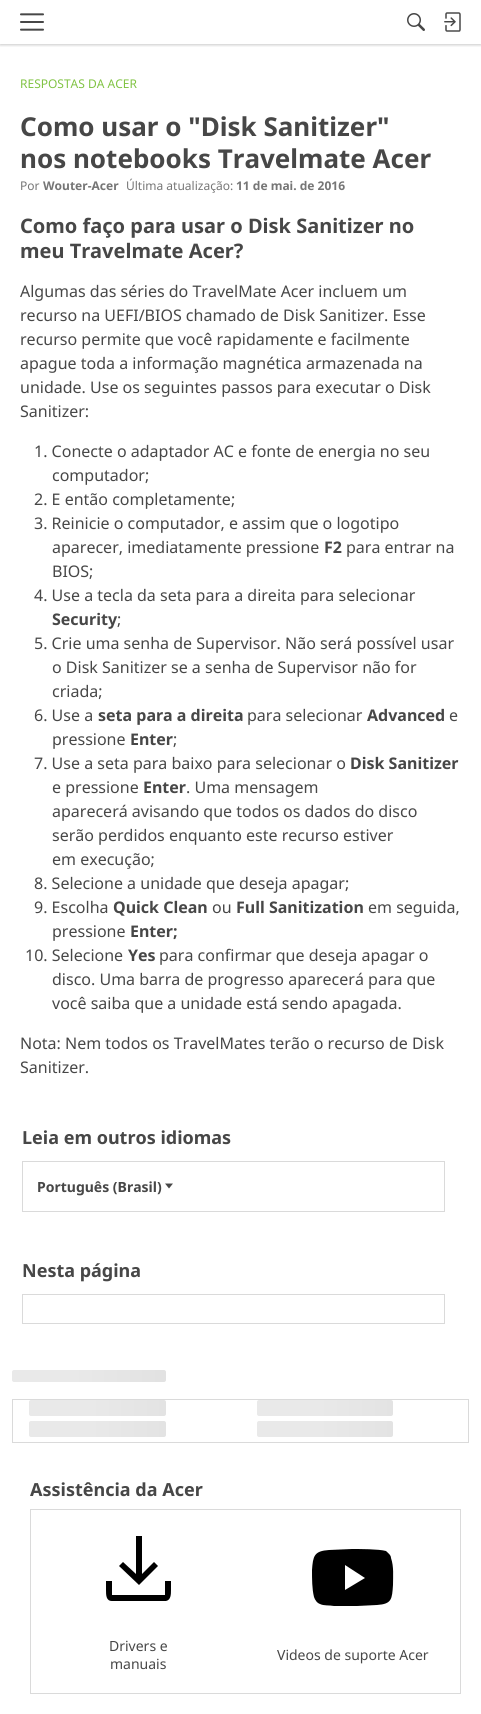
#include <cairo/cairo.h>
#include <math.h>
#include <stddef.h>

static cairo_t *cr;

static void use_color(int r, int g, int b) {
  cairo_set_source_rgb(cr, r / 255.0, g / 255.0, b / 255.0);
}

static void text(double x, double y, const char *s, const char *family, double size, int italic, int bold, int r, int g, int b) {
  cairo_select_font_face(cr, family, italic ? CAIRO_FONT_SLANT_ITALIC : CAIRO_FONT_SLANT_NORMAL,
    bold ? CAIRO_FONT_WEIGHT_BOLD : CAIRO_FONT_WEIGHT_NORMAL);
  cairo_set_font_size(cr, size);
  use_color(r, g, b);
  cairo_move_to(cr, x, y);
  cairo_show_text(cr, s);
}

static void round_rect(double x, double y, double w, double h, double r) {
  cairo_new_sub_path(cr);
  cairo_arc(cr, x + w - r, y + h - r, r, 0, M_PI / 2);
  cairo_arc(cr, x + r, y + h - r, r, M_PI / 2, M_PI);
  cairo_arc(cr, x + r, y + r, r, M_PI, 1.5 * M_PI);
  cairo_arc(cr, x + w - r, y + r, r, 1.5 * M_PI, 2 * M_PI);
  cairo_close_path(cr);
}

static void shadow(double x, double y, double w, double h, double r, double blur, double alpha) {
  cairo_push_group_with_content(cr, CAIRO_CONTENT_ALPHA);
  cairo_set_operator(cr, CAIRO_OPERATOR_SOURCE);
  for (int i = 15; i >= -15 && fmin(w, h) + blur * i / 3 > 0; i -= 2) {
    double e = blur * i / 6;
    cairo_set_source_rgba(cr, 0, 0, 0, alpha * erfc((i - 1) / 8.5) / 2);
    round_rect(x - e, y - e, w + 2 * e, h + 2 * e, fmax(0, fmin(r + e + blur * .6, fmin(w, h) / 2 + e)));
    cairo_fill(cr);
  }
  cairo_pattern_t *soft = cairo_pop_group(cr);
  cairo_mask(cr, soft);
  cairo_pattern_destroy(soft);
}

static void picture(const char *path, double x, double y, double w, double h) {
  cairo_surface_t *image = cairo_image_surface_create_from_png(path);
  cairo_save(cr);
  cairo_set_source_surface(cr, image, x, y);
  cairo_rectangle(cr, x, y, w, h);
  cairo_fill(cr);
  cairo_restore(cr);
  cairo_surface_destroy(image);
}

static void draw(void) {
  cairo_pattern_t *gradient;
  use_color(255, 255, 255);
  cairo_paint(cr);
  cairo_save(cr);
  cairo_rectangle(cr, 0, 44, 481, 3);
  cairo_clip(cr);
  use_color(0, 0, 0);
  shadow(0, 1, 481, 44, 0, 1.5, 0.22);
  cairo_restore(cr);
  picture("img_01.png", 20, 13, 24, 18);
  picture("img_02.png", 407, 13, 18, 18);
  picture("img_03.png", 444, 12, 17, 20);
  cairo_rectangle(cr, 22.5, 1161.5, 422, 50);
  use_color(218, 218, 218);
  cairo_set_line_width(cr, 1);
  cairo_stroke(cr);
  use_color(71, 71, 71);
  cairo_new_path(cr);
  cairo_move_to(cr, 165, 1183.5);
  cairo_line_to(cr, 173, 1183.5);
  cairo_line_to(cr, 169, 1188.5);
  cairo_close_path(cr);
  cairo_fill(cr);
  cairo_rectangle(cr, 22.5, 1294.5, 422, 29);
  use_color(218, 218, 218);
  cairo_stroke(cr);
  gradient = cairo_pattern_create_linear(12, 1376, 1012, 1376);
  cairo_pattern_add_color_stop_rgba(gradient, 0.06, 0.914, 0.914, 0.914, 1);
  cairo_pattern_add_color_stop_rgba(gradient, 0.25, 0.855, 0.855, 0.855, 1);
  cairo_pattern_add_color_stop_rgba(gradient, 0.34, 0.914, 0.914, 0.914, 1);
  cairo_set_source(cr, gradient);
  cairo_pattern_destroy(gradient);
  round_rect(12, 1370, 154, 12, 2);
  cairo_fill(cr);
  cairo_rectangle(cr, 12.5, 1399.5, 456, 43);
  use_color(218, 218, 218);
  cairo_stroke(cr);
  gradient = cairo_pattern_create_linear(29, 1408, 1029, 1408);
  cairo_pattern_add_color_stop_rgba(gradient, 0.06, 0.914, 0.914, 0.914, 1);
  cairo_pattern_add_color_stop_rgba(gradient, 0.25, 0.855, 0.855, 0.855, 1);
  cairo_pattern_add_color_stop_rgba(gradient, 0.34, 0.914, 0.914, 0.914, 1);
  cairo_set_source(cr, gradient);
  cairo_pattern_destroy(gradient);
  round_rect(29, 1400, 137, 16, 2);
  cairo_fill(cr);
  gradient = cairo_pattern_create_linear(257, 1408, 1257, 1408);
  cairo_pattern_add_color_stop_rgba(gradient, 0.06, 0.914, 0.914, 0.914, 1);
  cairo_pattern_add_color_stop_rgba(gradient, 0.25, 0.855, 0.855, 0.855, 1);
  cairo_pattern_add_color_stop_rgba(gradient, 0.34, 0.914, 0.914, 0.914, 1);
  cairo_set_source(cr, gradient);
  cairo_pattern_destroy(gradient);
  round_rect(257, 1400, 136, 16, 2);
  cairo_fill(cr);
  gradient = cairo_pattern_create_linear(29, 1429, 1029, 1429);
  cairo_pattern_add_color_stop_rgba(gradient, 0.06, 0.914, 0.914, 0.914, 1);
  cairo_pattern_add_color_stop_rgba(gradient, 0.25, 0.855, 0.855, 0.855, 1);
  cairo_pattern_add_color_stop_rgba(gradient, 0.34, 0.914, 0.914, 0.914, 1);
  cairo_set_source(cr, gradient);
  cairo_pattern_destroy(gradient);
  round_rect(29, 1421, 137, 16, 2);
  cairo_fill(cr);
  gradient = cairo_pattern_create_linear(257, 1429, 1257, 1429);
  cairo_pattern_add_color_stop_rgba(gradient, 0.06, 0.914, 0.914, 0.914, 1);
  cairo_pattern_add_color_stop_rgba(gradient, 0.25, 0.855, 0.855, 0.855, 1);
  cairo_pattern_add_color_stop_rgba(gradient, 0.34, 0.914, 0.914, 0.914, 1);
  cairo_set_source(cr, gradient);
  cairo_pattern_destroy(gradient);
  round_rect(257, 1421, 136, 16, 2);
  cairo_fill(cr);
  cairo_rectangle(cr, 30.5, 1509.5, 430, 184);
  use_color(218, 218, 218);
  cairo_stroke(cr);
  use_color(0, 0, 0);
  cairo_new_path(cr);
  cairo_move_to(cr, 112, 1601);
  cairo_curve_to(cr, 106, 1601, 106, 1595, 106, 1590);
  cairo_line_to(cr, 106, 1581);
  cairo_line_to(cr, 112, 1581);
  cairo_line_to(cr, 112, 1595);
  cairo_line_to(cr, 165, 1595);
  cairo_line_to(cr, 165, 1581);
  cairo_line_to(cr, 171, 1581);
  cairo_line_to(cr, 171, 1590);
  cairo_curve_to(cr, 171, 1594, 171, 1600, 166, 1601);
  cairo_close_path(cr);
  cairo_move_to(cr, 139, 1585);
  cairo_line_to(cr, 119, 1566);
  cairo_line_to(cr, 123, 1562);
  cairo_line_to(cr, 136, 1574);
  cairo_line_to(cr, 136, 1536);
  cairo_line_to(cr, 142, 1536);
  cairo_line_to(cr, 142, 1574);
  cairo_line_to(cr, 154, 1562);
  cairo_line_to(cr, 158, 1566);
  cairo_close_path(cr);
  cairo_fill(cr);
  cairo_new_path(cr);
  cairo_move_to(cr, 391, 1558);
  cairo_curve_to(cr, 391, 1555, 388, 1553, 386, 1551);
  cairo_curve_to(cr, 379, 1549, 359, 1549, 352, 1549);
  cairo_line_to(cr, 329, 1550);
  cairo_curve_to(cr, 314, 1551, 313, 1556, 312, 1570);
  cairo_curve_to(cr, 312, 1579, 312, 1589, 314, 1597);
  cairo_curve_to(cr, 315, 1600, 317, 1603, 320, 1604);
  cairo_curve_to(cr, 324, 1606, 329, 1605, 334, 1606);
  cairo_line_to(cr, 357, 1606);
  cairo_line_to(cr, 377, 1605);
  cairo_curve_to(cr, 392, 1604, 392, 1599, 393, 1585);
  cairo_curve_to(cr, 393, 1576, 394, 1567, 391, 1558);
  cairo_close_path(cr);
  cairo_move_to(cr, 345, 1590);
  cairo_line_to(cr, 345, 1565);
  cairo_line_to(cr, 365, 1578);
  cairo_close_path(cr);
  cairo_fill(cr);
  text(20, 88, "RESPOSTAS DA ACER", "Noto Sans", 12, 0, 0, 128, 195, 67);
  text(20, 136, "Como usar o \"Disk Sanitizer\"", "Noto Sans", 26, 0, 1, 71, 71, 71);
  text(20, 168, "nos notebooks Travelmate Acer", "Noto Sans", 26, 0, 1, 71, 71, 71);
  text(20, 190, "Por", "Noto Sans", 12, 0, 0, 118, 118, 118);
  text(43, 190, "Wouter-Acer", "Noto Sans", 12, 0, 1, 118, 118, 118);
  text(126, 190, "Última atualização:", "Noto Sans", 12, 0, 0, 118, 118, 118);
  text(236, 190, "11 de mai. de 2016", "Noto Sans", 12, 0, 1, 118, 118, 118);
  text(20, 233, "Como faço para usar o Disk Sanitizer no", "Noto Sans", 20, 0, 1, 71, 71, 71);
  text(20, 258, "meu Travelmate Acer?", "Noto Sans", 20, 0, 1, 71, 71, 71);
  text(20, 297, "Algumas das séries do TravelMate Acer incluem um", "Noto Sans", 16, 0, 0, 71, 71, 71);
  text(20, 321, "recurso na UEFI/BIOS chamado de Disk Sanitizer. Esse", "Noto Sans", 16, 0, 0, 71, 71, 71);
  text(20, 345, "recurso permite que você rapidamente e facilmente", "Noto Sans", 16, 0, 0, 71, 71, 71);
  text(20, 369, "apague toda a informação magnética armazenada na", "Noto Sans", 16, 0, 0, 71, 71, 71);
  text(20, 393, "unidade. Use os seguintes passos para executar o Disk", "Noto Sans", 16, 0, 0, 71, 71, 71);
  text(20, 417, "Sanitizer:", "Noto Sans", 16, 0, 0, 71, 71, 71);
  text(34, 457, "1. Conecte o adaptador AC e fonte de energia no seu", "Noto Sans", 16, 0, 0, 71, 71, 71);
  text(52, 481, "computador;", "Noto Sans", 16, 0, 0, 71, 71, 71);
  text(34, 505, "2. E então completamente;", "Noto Sans", 16, 0, 0, 71, 71, 71);
  text(34, 529, "3. Reinicie o computador, e assim que o logotipo", "Noto Sans", 16, 0, 0, 71, 71, 71);
  text(52, 553, "aparecer, imediatamente pressione", "Noto Sans", 16, 0, 0, 71, 71, 71);
  text(324, 553, "F2", "Noto Sans", 16, 0, 1, 71, 71, 71);
  text(346, 553, "para entrar na", "Noto Sans", 16, 0, 0, 71, 71, 71);
  text(52, 577, "BIOS;", "Noto Sans", 16, 0, 0, 71, 71, 71);
  text(34, 601, "4. Use a tecla da seta para a direita para selecionar", "Noto Sans", 16, 0, 0, 71, 71, 71);
  text(52, 625, "Security", "Noto Sans", 16, 0, 1, 71, 71, 71);
  text(117, 625, ";", "Noto Sans", 16, 0, 0, 71, 71, 71);
  text(34, 649, "5. Crie uma senha de Supervisor. Não será possível usar", "Noto Sans", 16, 0, 0, 71, 71, 71);
  text(52, 673, "o Disk Sanitizer se a senha de Supervisor não for", "Noto Sans", 16, 0, 0, 71, 71, 71);
  text(52, 697, "criada;", "Noto Sans", 16, 0, 0, 71, 71, 71);
  text(34, 721, "6. Use a", "Noto Sans", 16, 0, 0, 71, 71, 71);
  text(98, 721, "seta para a direita", "Noto Sans", 16, 0, 1, 71, 71, 71);
  text(247, 721, "para selecionar", "Noto Sans", 16, 0, 0, 71, 71, 71);
  text(367, 721, "Advanced", "Noto Sans", 16, 0, 1, 71, 71, 71);
  text(449, 721, "e", "Noto Sans", 16, 0, 0, 71, 71, 71);
  text(52, 745, "pressione", "Noto Sans", 16, 0, 0, 71, 71, 71);
  text(130, 745, "Enter", "Noto Sans", 16, 0, 1, 71, 71, 71);
  text(173, 745, ";", "Noto Sans", 16, 0, 0, 71, 71, 71);
  text(34, 769, "7. Use a seta para baixo para selecionar o", "Noto Sans", 16, 0, 0, 71, 71, 71);
  text(350, 769, "Disk Sanitizer", "Noto Sans", 16, 0, 1, 71, 71, 71);
  text(52, 793, "e pressione", "Noto Sans", 16, 0, 0, 71, 71, 71);
  text(143, 793, "Enter", "Noto Sans", 16, 0, 1, 71, 71, 71);
  text(186, 793, ". Uma mensagem", "Noto Sans", 16, 0, 0, 71, 71, 71);
  text(52, 817, "aparecerá avisando que todos os dados do disco", "Noto Sans", 16, 0, 0, 71, 71, 71);
  text(52, 841, "serão perdidos enquanto este recurso estiver", "Noto Sans", 16, 0, 0, 71, 71, 71);
  text(52, 865, "em execução;", "Noto Sans", 16, 0, 0, 71, 71, 71);
  text(34, 889, "8. Selecione a unidade que deseja apagar;", "Noto Sans", 16, 0, 0, 71, 71, 71);
  text(34, 913, "9. Escolha", "Noto Sans", 16, 0, 0, 71, 71, 71);
  text(113, 913, "Quick Clean", "Noto Sans", 16, 0, 1, 71, 71, 71);
  text(212, 913, "ou", "Noto Sans", 16, 0, 0, 71, 71, 71);
  text(236, 913, "Full Sanitization", "Noto Sans", 16, 0, 1, 71, 71, 71);
  text(368, 913, "em seguida,", "Noto Sans", 16, 0, 0, 71, 71, 71);
  text(52, 937, "pressione", "Noto Sans", 16, 0, 0, 71, 71, 71);
  text(130, 937, "Enter;", "Noto Sans", 16, 0, 1, 71, 71, 71);
  text(25, 961, "10. Selecione", "Noto Sans", 16, 0, 0, 71, 71, 71);
  text(128, 961, "Yes", "Noto Sans", 16, 0, 1, 71, 71, 71);
  text(159, 961, "para confirmar que deseja apagar o", "Noto Sans", 16, 0, 0, 71, 71, 71);
  text(52, 985, "disco. Uma barra de progresso aparecerá para que", "Noto Sans", 16, 0, 0, 71, 71, 71);
  text(52, 1009, "você saiba que a unidade está sendo apagada.", "Noto Sans", 16, 0, 0, 71, 71, 71);
  text(20, 1049, "Nota: Nem todos os TravelMates terão o recurso de Disk", "Noto Sans", 16, 0, 0, 71, 71, 71);
  text(20, 1073, "Sanitizer.", "Noto Sans", 16, 0, 0, 71, 71, 71);
  text(22, 1144, "Leia em outros idiomas", "Noto Sans", 18, 0, 1, 71, 71, 71);
  text(37, 1192, "Português (Brasil)", "Noto Sans", 14, 0, 1, 71, 71, 71);
  text(22, 1277, "Nesta página", "Noto Sans", 18, 0, 1, 71, 71, 71);
  text(30, 1496, "Assistência da Acer", "Noto Sans", 18, 0, 1, 71, 71, 71);
  text(109, 1651, "Drivers e", "Noto Sans", 14, 0, 0, 71, 71, 71);
  text(110, 1669, "manuais", "Noto Sans", 14, 0, 0, 71, 71, 71);
  text(277, 1660, "Videos de suporte Acer", "Noto Sans", 14, 0, 0, 71, 71, 71);
}

int main(void) {
  cairo_surface_t *surface = cairo_image_surface_create(CAIRO_FORMAT_RGB24, 481, 1714);
  cr = cairo_create(surface);
  cairo_font_options_t *options = cairo_font_options_create();
  cairo_font_options_set_hint_metrics(options, CAIRO_HINT_METRICS_OFF);
  cairo_font_options_set_hint_style(options, CAIRO_HINT_STYLE_NONE);
  cairo_set_font_options(cr, options);
  cairo_set_miter_limit(cr, 4);
  draw();
  cairo_surface_write_to_png(surface, "out.png");
  cairo_font_options_destroy(options);
  cairo_destroy(cr);
  cairo_surface_destroy(surface);
  return 0;
}
